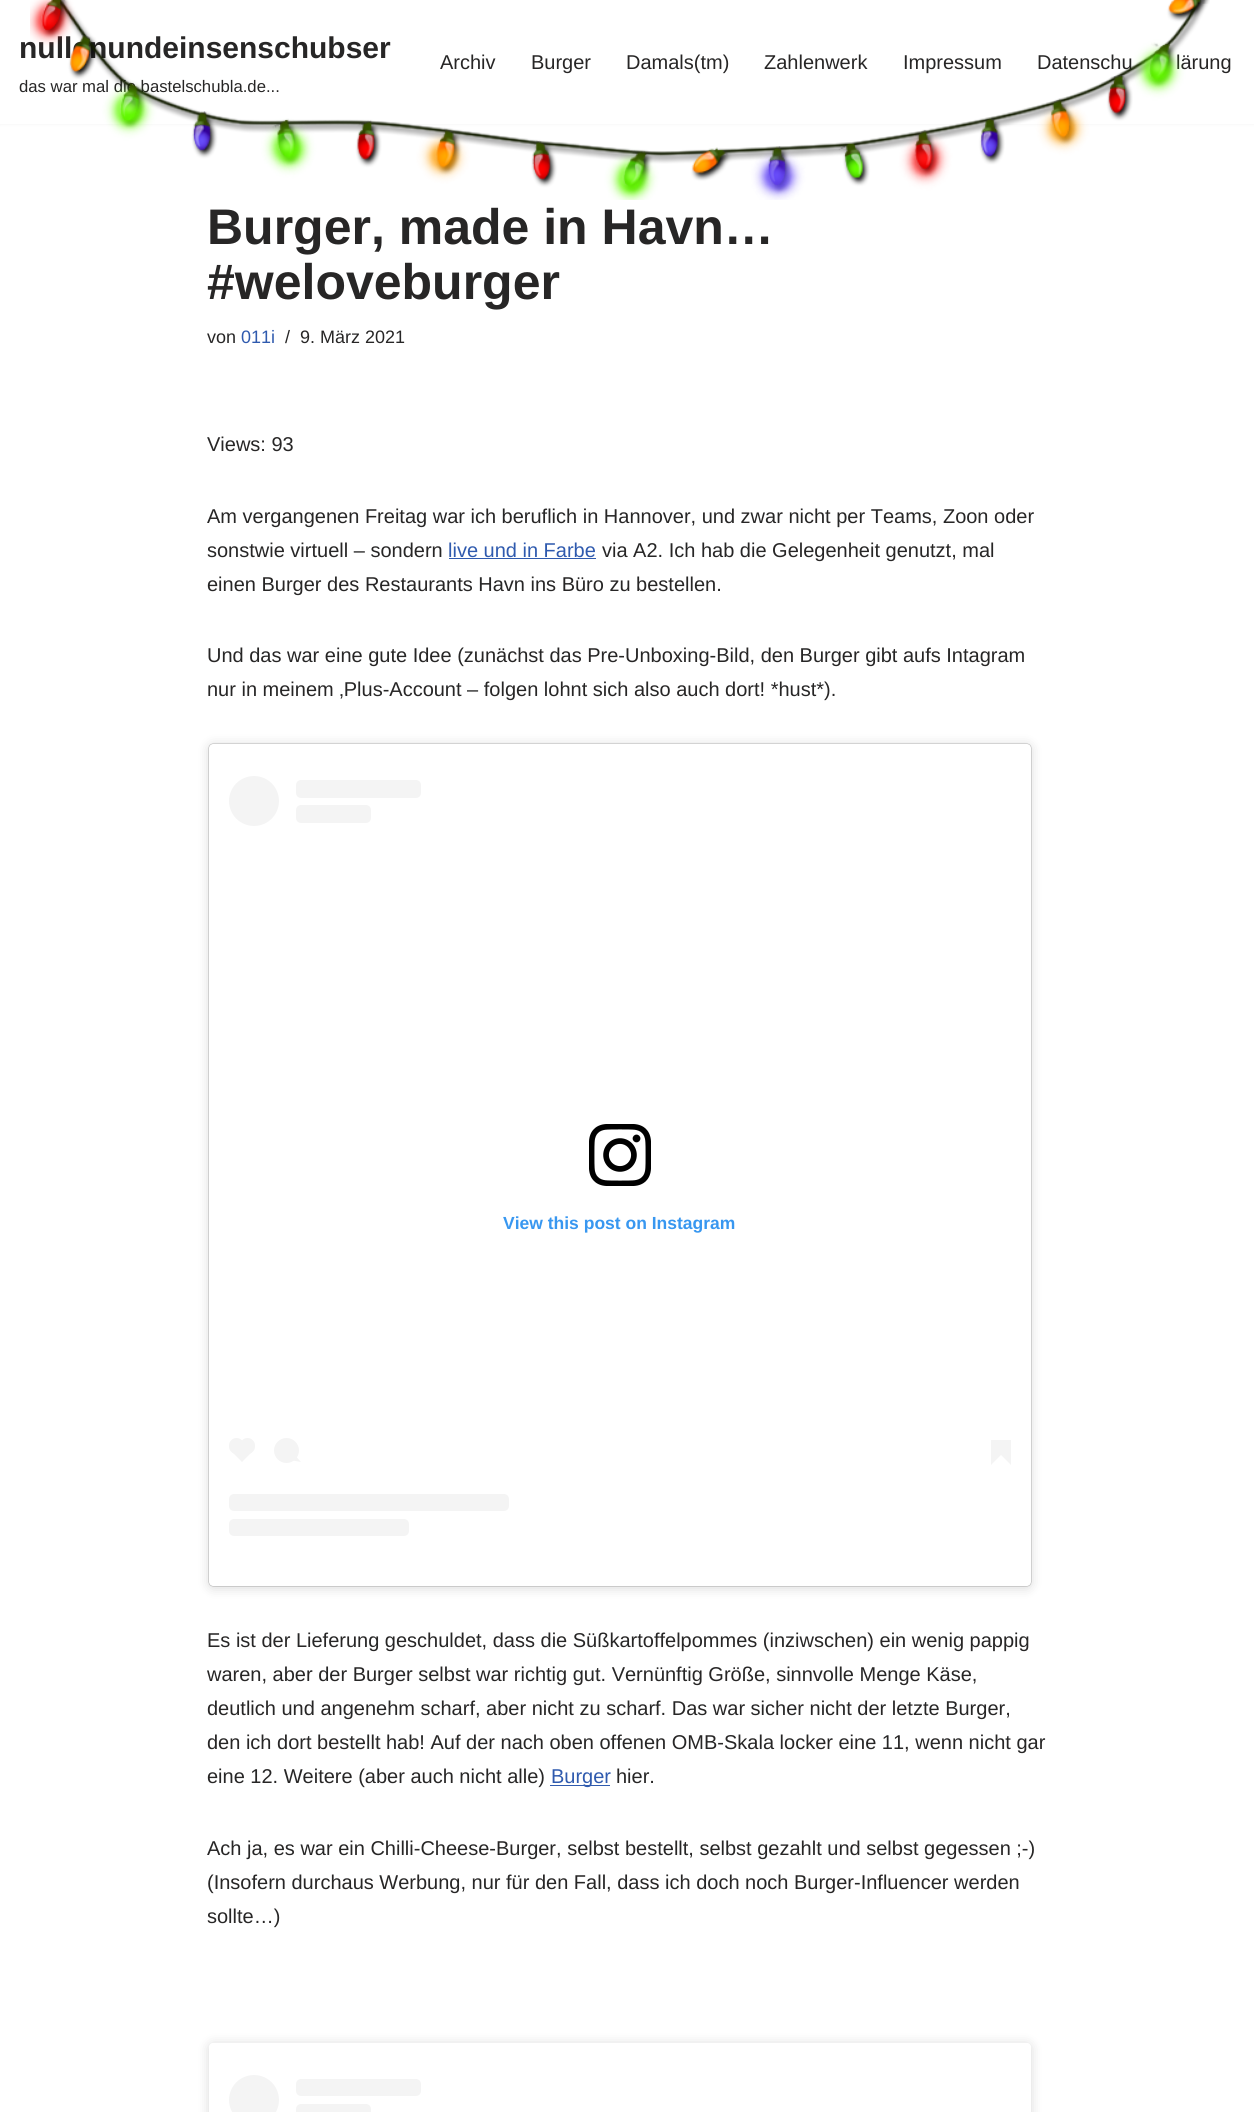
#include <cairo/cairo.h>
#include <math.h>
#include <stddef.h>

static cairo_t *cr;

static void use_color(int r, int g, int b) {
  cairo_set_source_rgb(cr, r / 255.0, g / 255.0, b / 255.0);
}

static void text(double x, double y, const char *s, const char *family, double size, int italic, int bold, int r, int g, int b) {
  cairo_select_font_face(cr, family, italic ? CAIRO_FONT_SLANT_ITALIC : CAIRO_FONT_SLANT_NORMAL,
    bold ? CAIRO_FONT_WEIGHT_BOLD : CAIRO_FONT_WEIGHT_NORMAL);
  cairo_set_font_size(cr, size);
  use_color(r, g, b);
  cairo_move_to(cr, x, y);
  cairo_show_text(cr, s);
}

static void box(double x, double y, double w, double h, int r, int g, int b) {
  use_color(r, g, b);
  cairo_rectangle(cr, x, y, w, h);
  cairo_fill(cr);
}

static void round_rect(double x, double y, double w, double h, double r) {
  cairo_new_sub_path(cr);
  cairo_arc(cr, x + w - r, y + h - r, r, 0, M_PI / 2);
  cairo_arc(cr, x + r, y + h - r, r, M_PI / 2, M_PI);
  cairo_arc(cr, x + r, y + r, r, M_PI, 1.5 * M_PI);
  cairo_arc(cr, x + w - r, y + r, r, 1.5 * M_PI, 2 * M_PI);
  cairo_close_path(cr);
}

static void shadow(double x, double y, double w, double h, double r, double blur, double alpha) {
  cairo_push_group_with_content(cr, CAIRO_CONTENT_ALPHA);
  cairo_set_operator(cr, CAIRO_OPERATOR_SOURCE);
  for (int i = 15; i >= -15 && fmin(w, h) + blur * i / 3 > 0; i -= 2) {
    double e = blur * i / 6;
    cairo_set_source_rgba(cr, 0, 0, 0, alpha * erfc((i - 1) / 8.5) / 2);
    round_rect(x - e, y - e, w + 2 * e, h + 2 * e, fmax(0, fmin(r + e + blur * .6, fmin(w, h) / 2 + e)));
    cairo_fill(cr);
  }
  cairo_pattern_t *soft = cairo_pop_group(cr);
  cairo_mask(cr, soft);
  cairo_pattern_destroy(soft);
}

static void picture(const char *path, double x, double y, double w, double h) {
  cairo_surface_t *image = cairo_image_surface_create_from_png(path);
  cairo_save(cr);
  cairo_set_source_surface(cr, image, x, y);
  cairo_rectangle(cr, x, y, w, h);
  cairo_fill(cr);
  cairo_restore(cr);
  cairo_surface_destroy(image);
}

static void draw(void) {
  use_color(255, 255, 255);
  cairo_paint(cr);
  use_color(0, 0, 0);
  shadow(0, -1, 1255, 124, 0, 2, 0.1);
  box(0, 0, 1254, 124, 255, 255, 255);
  box(449, 558, 147, 1, 47, 90, 174);
  use_color(0, 0, 0);
  shadow(209, 745, 822, 843, 4, 6, 0.15);
  shadow(209, 744, 822, 842, 4, 0.5, 0.5);
  use_color(255, 255, 255);
  round_rect(209, 744, 822, 842, 4);
  cairo_fill(cr);
  use_color(244, 244, 244);
  cairo_arc(cr, 254, 801, 25, 0, 2 * M_PI);
  cairo_fill(cr);
  round_rect(296, 780, 125, 18, 5);
  cairo_fill(cr);
  round_rect(296, 805, 75, 18, 5);
  cairo_fill(cr);
  picture("img_02.png", 589, 1124, 62, 62);
  round_rect(229, 1438, 15, 16, 7.5);
  cairo_fill(cr);
  cairo_new_path(cr);
  cairo_move_to(cr, 231, 1451);
  cairo_line_to(cr, 242, 1440);
  cairo_line_to(cr, 253, 1451);
  cairo_line_to(cr, 242, 1462);
  cairo_close_path(cr);
  cairo_fill(cr);
  round_rect(240, 1438, 15, 16, 7.5);
  cairo_fill(cr);
  cairo_arc(cr, 286.5, 1450.5, 12.5, 0, 2 * M_PI);
  cairo_fill(cr);
  cairo_new_path(cr);
  cairo_move_to(cr, 293, 1460.5);
  cairo_line_to(cr, 295.5, 1456);
  cairo_line_to(cr, 301, 1462);
  cairo_close_path(cr);
  cairo_fill(cr);
  box(991, 1440, 20, 15, 244, 244, 244);
  cairo_new_path(cr);
  cairo_move_to(cr, 991, 1455);
  cairo_line_to(cr, 1001, 1455);
  cairo_line_to(cr, 991, 1465);
  cairo_close_path(cr);
  cairo_fill(cr);
  cairo_new_path(cr);
  cairo_move_to(cr, 1001, 1455);
  cairo_line_to(cr, 1011, 1455);
  cairo_line_to(cr, 1011, 1465);
  cairo_close_path(cr);
  cairo_fill(cr);
  round_rect(229, 1494, 280, 17, 5);
  cairo_fill(cr);
  round_rect(229, 1519, 180, 17, 5);
  cairo_fill(cr);
  box(550, 1785, 60, 1, 47, 90, 174);
  cairo_save(cr);
  cairo_set_fill_rule(cr, CAIRO_FILL_RULE_EVEN_ODD);
  cairo_new_path(cr);
  cairo_move_to(cr, 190, 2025);
  cairo_line_to(cr, 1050, 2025);
  cairo_line_to(cr, 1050, 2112);
  cairo_line_to(cr, 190, 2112);
  cairo_close_path(cr);
  cairo_move_to(cr, 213, 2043);
  cairo_line_to(cr, 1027, 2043);
  cairo_curve_to(cr, 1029, 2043, 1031, 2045, 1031, 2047);
  cairo_line_to(cr, 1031, 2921);
  cairo_curve_to(cr, 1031, 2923, 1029, 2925, 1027, 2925);
  cairo_line_to(cr, 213, 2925);
  cairo_curve_to(cr, 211, 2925, 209, 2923, 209, 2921);
  cairo_line_to(cr, 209, 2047);
  cairo_curve_to(cr, 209, 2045, 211, 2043, 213, 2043);
  cairo_close_path(cr);
  cairo_clip(cr);
  use_color(0, 0, 0);
  shadow(209, 2044, 822, 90, 4, 6, 0.15);
  cairo_restore(cr);
  use_color(244, 244, 244);
  cairo_arc(cr, 254, 2100, 25, 0, 2 * M_PI);
  cairo_fill(cr);
  round_rect(296, 2079, 125, 17, 5);
  cairo_fill(cr);
  round_rect(296, 2104, 75, 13, 5);
  cairo_fill(cr);
  text(19, 58, "nullenundeinsenschubser", "Liberation Sans", 30, 0, 1, 39, 38, 38);
  text(19, 92, "das war mal die bastelschubla.de...", "Liberation Sans", 16.7, 0, 0, 39, 38, 38);
  text(440, 69, "Archiv", "Liberation Sans", 20, 0, 0, 39, 38, 38);
  text(531, 69, "Burger", "Liberation Sans", 20, 0, 0, 39, 38, 38);
  text(626, 69, "Damals(tm)", "Liberation Sans", 20, 0, 0, 39, 38, 38);
  text(764, 69, "Zahlenwerk", "Liberation Sans", 20, 0, 0, 39, 38, 38);
  text(903, 69, "Impressum", "Liberation Sans", 20, 0, 0, 39, 38, 38);
  text(1037, 69, "Datenschu", "Liberation Sans", 20, 0, 0, 39, 38, 38);
  text(1176, 69, "lärung", "Liberation Sans", 20, 0, 0, 39, 38, 38);
  picture("img_01.png", 30, 0, 1180, 200);
  text(207, 244, "Burger, made in Havn…", "Liberation Sans", 50, 0, 1, 39, 38, 38);
  text(207, 299, "#weloveburger", "Liberation Sans", 50, 0, 1, 39, 38, 38);
  text(207, 343, "von", "Liberation Sans", 18, 0, 0, 39, 38, 38);
  text(241, 343, "011i", "Liberation Sans", 18, 0, 0, 47, 90, 174);
  text(285, 343, "/", "Liberation Sans", 18, 0, 0, 39, 38, 38);
  text(300, 343, "9. März 2021", "Liberation Sans", 18, 0, 0, 39, 38, 38);
  text(207, 451, "Views: 93", "Liberation Sans", 20, 0, 0, 39, 38, 38);
  text(207, 523, "Am vergangenen Freitag war ich beruflich in Hannover, und zwar nicht per Teams, Zoon oder", "Liberation Sans", 20, 0, 0, 39, 38, 38);
  text(207, 557, "sonstwie virtuell – sondern", "Liberation Sans", 20, 0, 0, 39, 38, 38);
  text(448, 557, "live und in Farbe", "Liberation Sans", 20, 0, 0, 47, 90, 174);
  text(602, 557, "via A2. Ich hab die Gelegenheit genutzt, mal", "Liberation Sans", 20, 0, 0, 39, 38, 38);
  text(207, 591, "einen Burger des Restaurants Havn ins Büro zu bestellen.", "Liberation Sans", 20, 0, 0, 39, 38, 38);
  text(207, 662, "Und das war eine gute Idee (zunächst das Pre-Unboxing-Bild, den Burger gibt aufs Intagram", "Liberation Sans", 20, 0, 0, 39, 38, 38);
  text(207, 696, "nur in meinem ‚Plus-Account – folgen lohnt sich also auch dort! *hust*).", "Liberation Sans", 20, 0, 0, 39, 38, 38);
  text(503, 1229, "View this post on Instagram", "Liberation Sans", 17.5, 0, 1, 56, 151, 240);
  text(207, 1647, "Es ist der Lieferung geschuldet, dass die Süßkartoffelpommes (inziwschen) ein wenig pappig", "Liberation Sans", 20, 0, 0, 39, 38, 38);
  text(207, 1681, "waren, aber der Burger selbst war richtig gut. Vernünftig Größe, sinnvolle Menge Käse,", "Liberation Sans", 20, 0, 0, 39, 38, 38);
  text(207, 1715, "deutlich und angenehm scharf, aber nicht zu scharf. Das war sicher nicht der letzte Burger,", "Liberation Sans", 20, 0, 0, 39, 38, 38);
  text(207, 1749, "den ich dort bestellt hab! Auf der nach oben offenen OMB-Skala locker eine 11, wenn nicht gar", "Liberation Sans", 20, 0, 0, 39, 38, 38);
  text(207, 1783, "eine 12. Weitere (aber auch nicht alle)", "Liberation Sans", 20, 0, 0, 39, 38, 38);
  text(551, 1783, "Burger", "Liberation Sans", 20, 0, 0, 47, 90, 174);
  text(616, 1783, "hier.", "Liberation Sans", 20, 0, 0, 39, 38, 38);
  text(207, 1855, "Ach ja, es war ein Chilli-Cheese-Burger, selbst bestellt, selbst gezahlt und selbst gegessen ;-)", "Liberation Sans", 20, 0, 0, 39, 38, 38);
  text(207, 1889, "(Insofern durchaus Werbung, nur für den Fall, dass ich doch noch Burger-Influencer werden", "Liberation Sans", 20, 0, 0, 39, 38, 38);
  text(207, 1923, "sollte…)", "Liberation Sans", 20, 0, 0, 39, 38, 38);
}

int main(void) {
  cairo_surface_t *surface = cairo_image_surface_create(CAIRO_FORMAT_RGB24, 1254, 2112);
  cr = cairo_create(surface);
  cairo_font_options_t *options = cairo_font_options_create();
  cairo_font_options_set_hint_metrics(options, CAIRO_HINT_METRICS_OFF);
  cairo_font_options_set_hint_style(options, CAIRO_HINT_STYLE_NONE);
  cairo_set_font_options(cr, options);
  cairo_set_miter_limit(cr, 4);
  draw();
  cairo_surface_write_to_png(surface, "out.png");
  cairo_font_options_destroy(options);
  cairo_destroy(cr);
  cairo_surface_destroy(surface);
  return 0;
}
